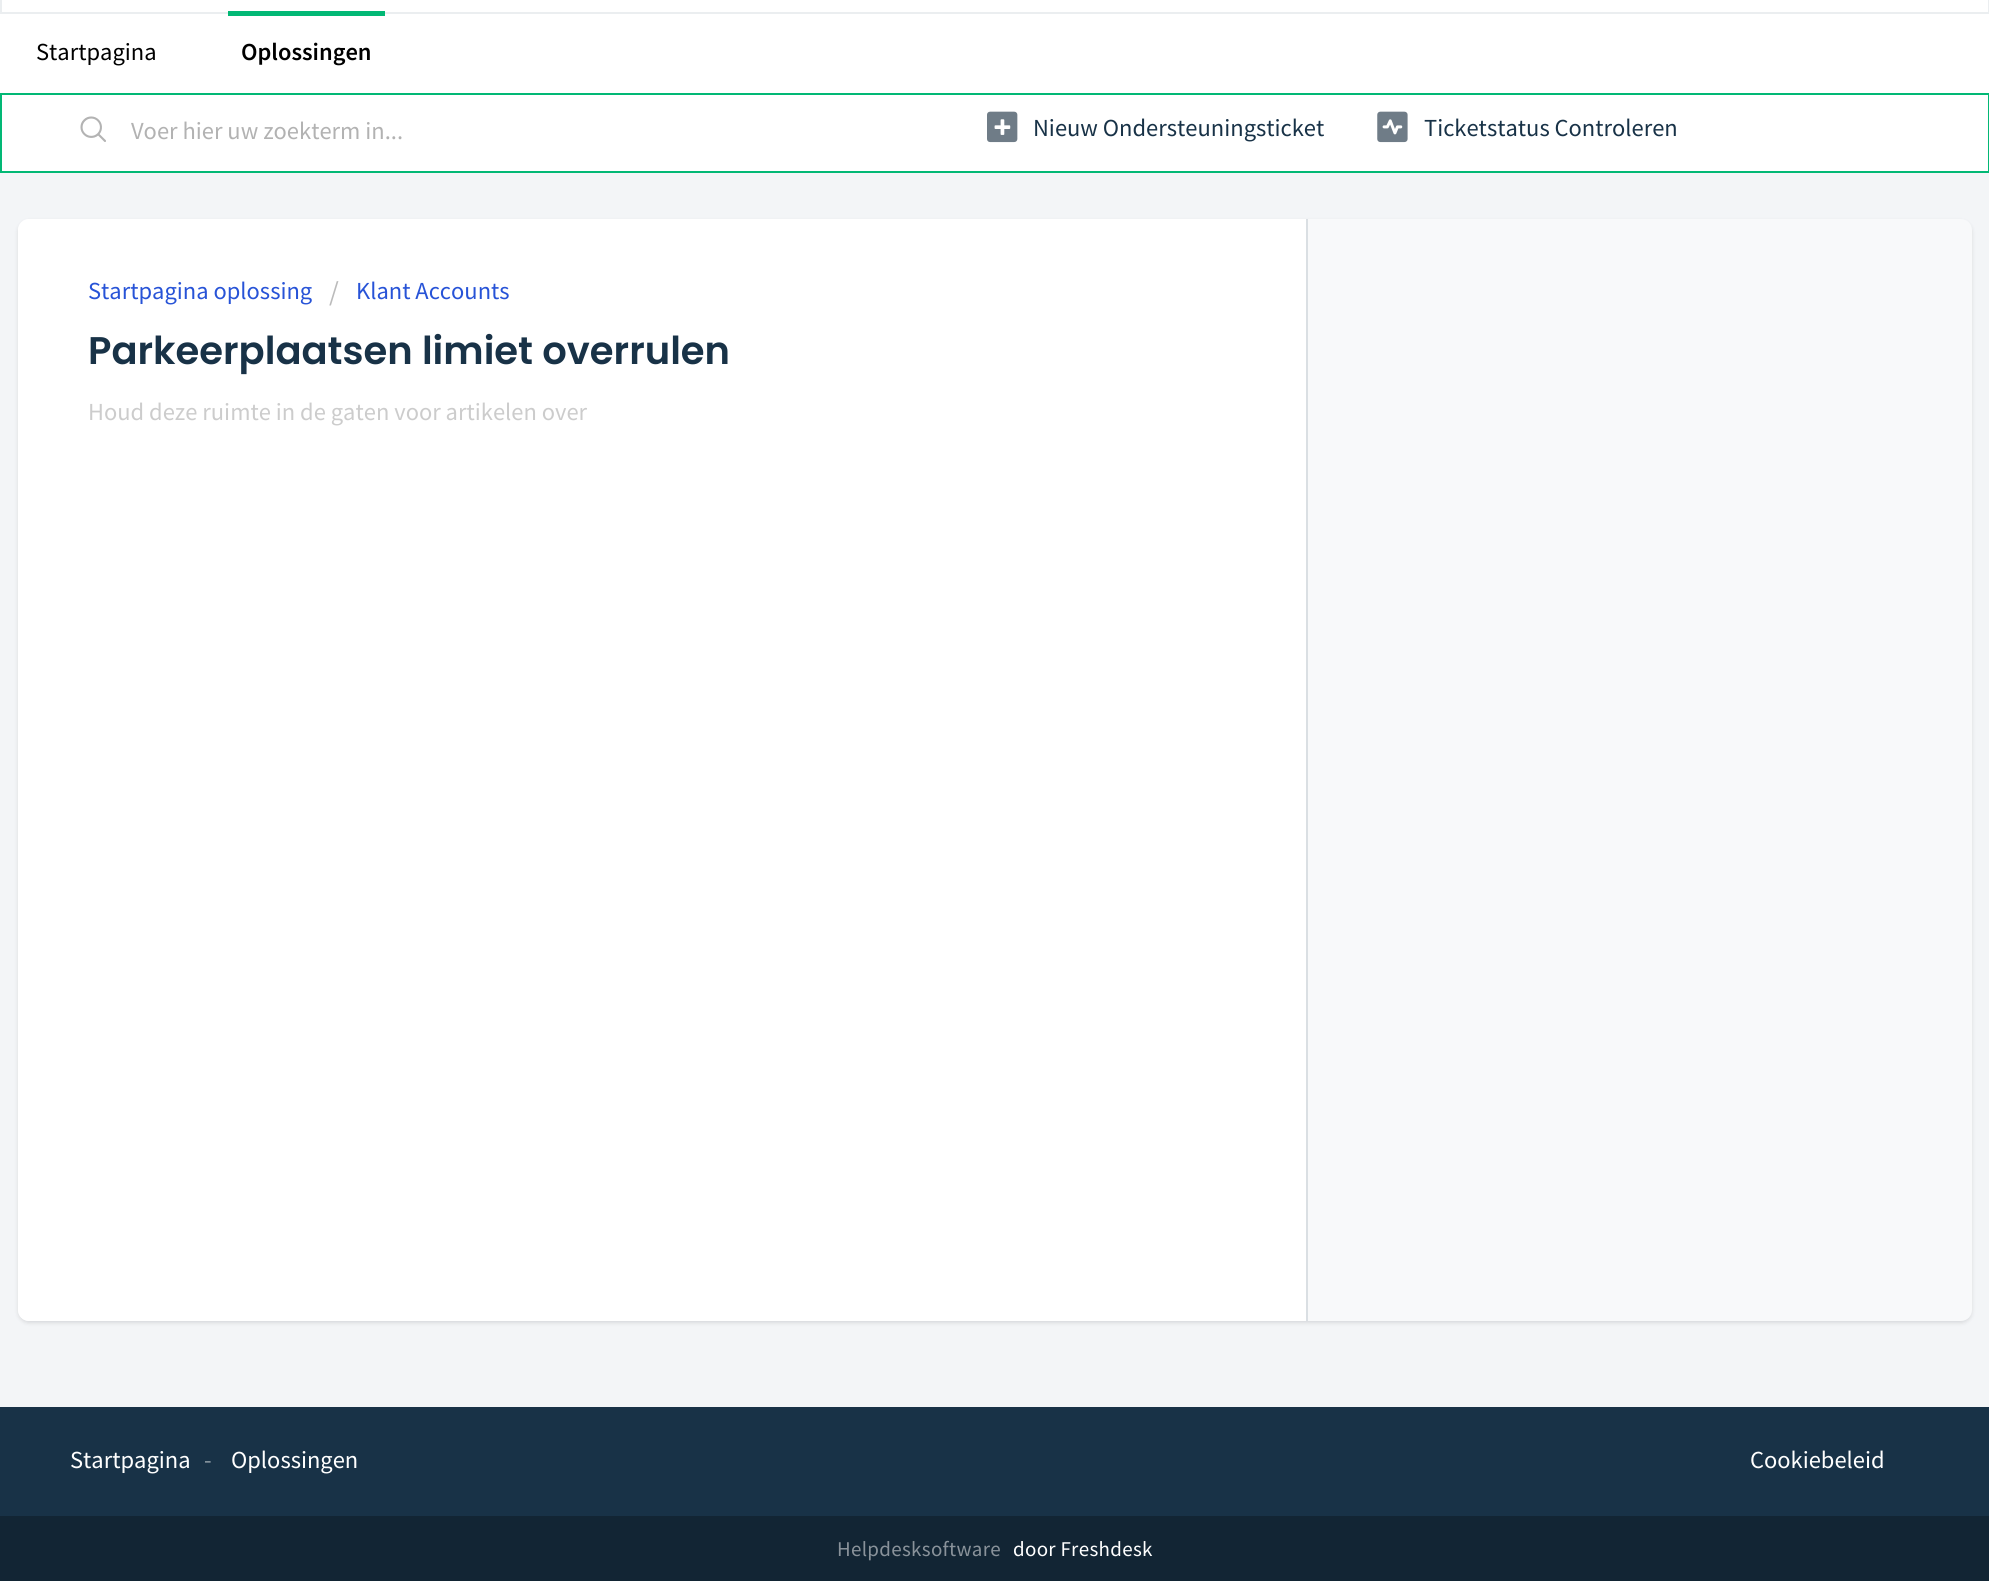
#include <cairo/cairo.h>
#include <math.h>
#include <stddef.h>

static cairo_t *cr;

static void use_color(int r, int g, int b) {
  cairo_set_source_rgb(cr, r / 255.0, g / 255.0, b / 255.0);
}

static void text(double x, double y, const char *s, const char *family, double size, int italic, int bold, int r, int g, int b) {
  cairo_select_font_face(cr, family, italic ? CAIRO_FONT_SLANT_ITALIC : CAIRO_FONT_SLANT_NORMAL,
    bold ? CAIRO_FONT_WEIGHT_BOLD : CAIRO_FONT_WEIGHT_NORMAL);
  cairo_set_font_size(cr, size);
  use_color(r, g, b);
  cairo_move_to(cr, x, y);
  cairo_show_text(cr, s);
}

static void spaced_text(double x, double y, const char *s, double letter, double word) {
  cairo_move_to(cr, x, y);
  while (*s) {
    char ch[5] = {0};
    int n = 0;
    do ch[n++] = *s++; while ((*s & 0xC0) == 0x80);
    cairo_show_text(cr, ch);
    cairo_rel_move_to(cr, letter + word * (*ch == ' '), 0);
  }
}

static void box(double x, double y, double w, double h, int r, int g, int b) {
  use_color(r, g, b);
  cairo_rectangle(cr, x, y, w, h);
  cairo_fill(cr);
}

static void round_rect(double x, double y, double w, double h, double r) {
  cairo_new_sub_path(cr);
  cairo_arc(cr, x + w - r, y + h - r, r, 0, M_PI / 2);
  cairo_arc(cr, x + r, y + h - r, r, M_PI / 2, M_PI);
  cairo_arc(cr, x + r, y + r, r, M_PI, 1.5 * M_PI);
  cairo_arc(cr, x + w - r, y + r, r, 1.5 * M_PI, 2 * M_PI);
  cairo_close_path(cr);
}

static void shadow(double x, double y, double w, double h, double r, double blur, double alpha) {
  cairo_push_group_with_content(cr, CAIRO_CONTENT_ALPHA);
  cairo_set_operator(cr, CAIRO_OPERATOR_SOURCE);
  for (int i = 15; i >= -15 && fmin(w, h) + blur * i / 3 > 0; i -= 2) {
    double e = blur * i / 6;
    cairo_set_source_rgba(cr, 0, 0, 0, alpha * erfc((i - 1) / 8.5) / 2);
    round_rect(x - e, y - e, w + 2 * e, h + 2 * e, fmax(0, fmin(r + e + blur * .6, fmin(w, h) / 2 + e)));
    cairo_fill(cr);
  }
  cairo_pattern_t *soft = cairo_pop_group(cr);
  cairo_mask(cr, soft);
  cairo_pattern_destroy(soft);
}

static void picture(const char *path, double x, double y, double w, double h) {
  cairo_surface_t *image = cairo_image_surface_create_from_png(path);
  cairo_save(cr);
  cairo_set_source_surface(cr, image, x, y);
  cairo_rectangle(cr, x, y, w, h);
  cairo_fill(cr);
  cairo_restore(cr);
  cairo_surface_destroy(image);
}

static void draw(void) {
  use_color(243, 245, 247);
  cairo_paint(cr);
  use_color(255, 255, 255);
  cairo_rectangle(cr, 1, -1, 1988, 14);
  cairo_fill_preserve(cr);
  use_color(235, 238, 240);
  cairo_stroke(cr);
  box(0, 14, 1989, 79, 255, 255, 255);
  box(228, 11, 157, 5, 2, 184, 117);
  use_color(255, 255, 255);
  cairo_rectangle(cr, 1, 94, 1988, 78);
  cairo_fill_preserve(cr);
  use_color(2, 184, 117);
  cairo_stroke(cr);
  picture("img_01.png", 80, 116, 26, 26);
  picture("img_02.png", 987, 111, 31, 32);
  picture("img_03.png", 1377, 111, 31, 32);
  use_color(63, 63, 68);
  shadow(18, 221, 1954, 1102, 11, 2, 0.15);
  use_color(248, 249, 250);
  round_rect(18, 219, 1954, 1102, 11);
  cairo_fill(cr);
  use_color(255, 255, 255);
  cairo_new_path(cr);
  cairo_move_to(cr, 29, 219);
  cairo_line_to(cr, 1307, 219);
  cairo_line_to(cr, 1307, 1321);
  cairo_line_to(cr, 29, 1321);
  cairo_curve_to(cr, 23, 1321, 18, 1316, 18, 1310);
  cairo_line_to(cr, 18, 230);
  cairo_curve_to(cr, 18, 224, 23, 219, 29, 219);
  cairo_close_path(cr);
  cairo_fill(cr);
  box(1306, 219, 2, 1102, 218, 223, 227);
  box(0, 1407, 1989, 109, 24, 50, 71);
  box(0, 1516, 1989, 65, 18, 37, 52);
  text(36, 60, "Startpagina", "Source Sans Pro", 24.5, 0, 0, 0, 0, 0);
  text(241, 60, "Oplossingen", "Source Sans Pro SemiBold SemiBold", 24.5, 0, 0, 0, 0, 0);
  text(131, 139, "Voer hier uw zoekterm in...", "Source Sans Pro", 24.5, 0, 0, 178, 178, 178);
  text(1033, 136, "Nieuw Ondersteuningsticket", "Source Sans Pro", 24.5, 0, 0, 24, 50, 71);
  text(1424, 136, "Ticketstatus Controleren", "Source Sans Pro", 24.5, 0, 0, 24, 50, 71);
  text(88, 299, "Startpagina oplossing", "Source Sans Pro", 24.5, 0, 0, 39, 83, 215);
  text(329, 301, "/", "Source Sans Pro", 28, 0, 0, 187, 187, 187);
  text(356, 299, "Klant Accounts", "Source Sans Pro", 24.5, 0, 0, 39, 83, 215);
  text(88, 364, "Parkeerplaatsen limiet overrulen", "Poppins SemiBold", 38.5, 0, 0, 24, 50, 71);
  text(88, 420, "Houd deze ruimte in de gaten voor artikelen over", "Source Sans Pro", 24.5, 0, 0, 204, 204, 204);
  text(70, 1468, "Startpagina", "Source Sans Pro", 24.5, 0, 0, 255, 255, 255);
  text(204, 1468, "-", "Source Sans Pro", 24.5, 0, 0, 140, 153, 163);
  text(231, 1468, "Oplossingen", "Source Sans Pro", 24.5, 0, 0, 255, 255, 255);
  text(1750, 1468, "Cookiebeleid", "Source Sans Pro", 24.5, 0, 0, 255, 255, 255);
  cairo_set_font_size(cr, 21);
  use_color(137, 146, 154);
  spaced_text(837, 1556, "Helpdesksoftware", 0.3, 0);
  use_color(255, 255, 255);
  spaced_text(1013, 1556, "door Freshdesk", 0.3, 0);
}

int main(void) {
  cairo_surface_t *surface = cairo_image_surface_create(CAIRO_FORMAT_RGB24, 1989, 1581);
  cr = cairo_create(surface);
  cairo_font_options_t *options = cairo_font_options_create();
  cairo_font_options_set_hint_metrics(options, CAIRO_HINT_METRICS_OFF);
  cairo_font_options_set_hint_style(options, CAIRO_HINT_STYLE_NONE);
  cairo_set_font_options(cr, options);
  cairo_set_miter_limit(cr, 4);
  draw();
  cairo_surface_write_to_png(surface, "out.png");
  cairo_font_options_destroy(options);
  cairo_destroy(cr);
  cairo_surface_destroy(surface);
  return 0;
}
